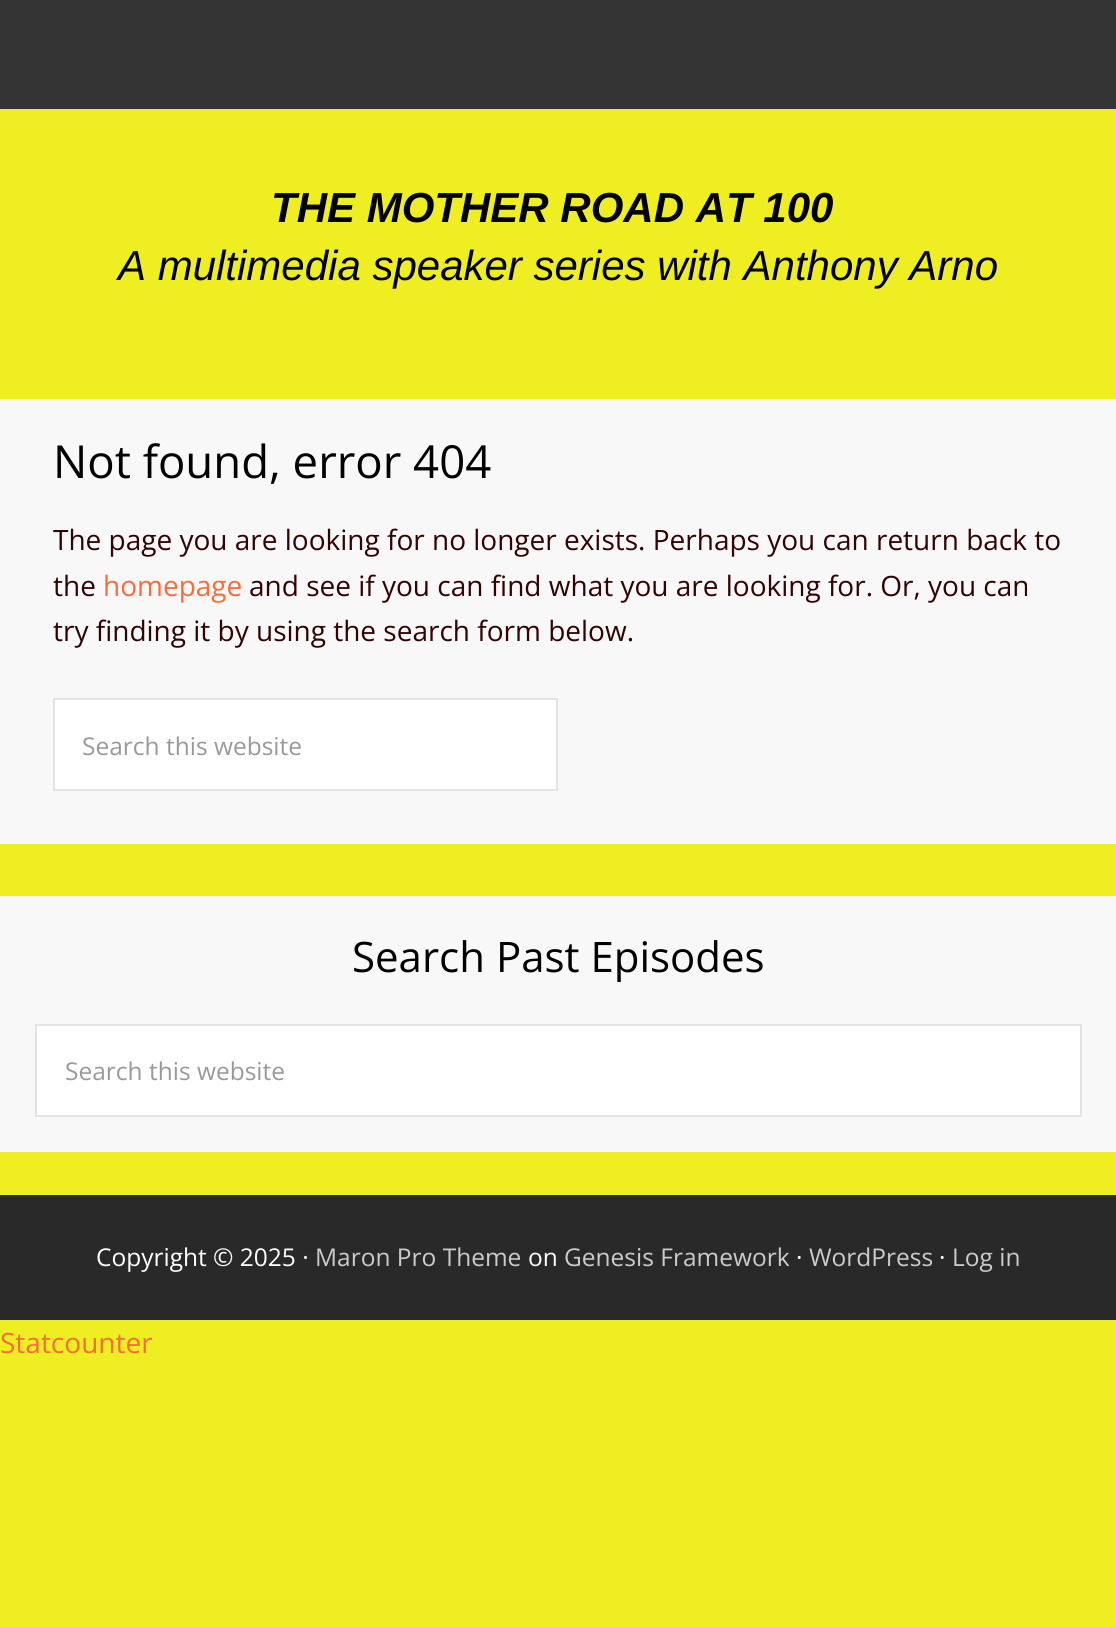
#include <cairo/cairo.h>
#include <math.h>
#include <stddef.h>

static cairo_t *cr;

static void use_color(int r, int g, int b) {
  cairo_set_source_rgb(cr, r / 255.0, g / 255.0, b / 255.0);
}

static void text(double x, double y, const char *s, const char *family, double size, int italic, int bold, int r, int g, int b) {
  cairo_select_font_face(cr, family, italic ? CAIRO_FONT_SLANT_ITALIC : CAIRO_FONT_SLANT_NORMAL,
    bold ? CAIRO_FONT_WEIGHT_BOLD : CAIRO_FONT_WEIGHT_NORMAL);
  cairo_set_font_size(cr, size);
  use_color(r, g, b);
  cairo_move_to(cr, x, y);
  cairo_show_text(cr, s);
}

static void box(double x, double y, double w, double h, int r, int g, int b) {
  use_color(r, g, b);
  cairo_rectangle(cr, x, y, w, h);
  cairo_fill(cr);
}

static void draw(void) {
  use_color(238, 238, 34);
  cairo_paint(cr);
  box(0, 0, 1116, 109, 52, 52, 52);
  box(0, 399, 1116, 445, 248, 248, 248);
  use_color(255, 255, 255);
  cairo_rectangle(cr, 54, 699, 503, 91);
  cairo_fill_preserve(cr);
  use_color(227, 227, 227);
  cairo_stroke(cr);
  box(0, 896, 1116, 256, 248, 248, 248);
  use_color(255, 255, 255);
  cairo_rectangle(cr, 36, 1025, 1045, 91);
  cairo_fill_preserve(cr);
  use_color(227, 227, 227);
  cairo_stroke(cr);
  box(0, 1195, 1116, 125, 41, 41, 41);
  text(271, 222, "THE MOTHER ROAD AT 100", "Liberation Sans", 42, 1, 1, 0, 0, 0);
  text(118, 280, "A multimedia speaker series with Anthony Arno", "Liberation Sans", 42, 1, 0, 0, 0, 0);
  text(53, 478, "Not found, error 404", "Open Sans", 45.5, 0, 0, 0, 0, 0);
  text(53, 550, "The page you are looking for no longer exists. Perhaps you can return back to", "Open Sans", 28, 0, 0, 51, 2, 2);
  text(53, 596, "the", "Open Sans", 28, 0, 0, 51, 2, 2);
  text(103, 596, "homepage", "Open Sans", 28, 0, 0, 247, 109, 60);
  text(249, 596, "and see if you can find what you are looking for. Or, you can", "Open Sans", 28, 0, 0, 51, 2, 2);
  text(53, 641, "try finding it by using the search form below.", "Open Sans", 28, 0, 0, 51, 2, 2);
  text(82, 755, "Search this website", "Open Sans", 24.5, 0, 0, 153, 153, 153);
  text(352, 972, "Search Past Episodes", "Open Sans", 42, 0, 0, 0, 0, 0);
  text(65, 1080, "Search this website", "Open Sans", 24.5, 0, 0, 153, 153, 153);
  text(96, 1266, "Copyright © 2025 ·", "Open Sans", 24.5, 0, 0, 255, 255, 255);
  text(315, 1266, "Maron Pro Theme", "Open Sans", 24.5, 0, 0, 203, 203, 203);
  text(528, 1266, "on", "Open Sans", 24.5, 0, 0, 255, 255, 255);
  text(564, 1266, "Genesis Framework", "Open Sans", 24.5, 0, 0, 203, 203, 203);
  text(796, 1266, "·", "Open Sans", 24.5, 0, 0, 255, 255, 255);
  text(809, 1266, "WordPress", "Open Sans", 24.5, 0, 0, 203, 203, 203);
  text(939, 1266, "·", "Open Sans", 24.5, 0, 0, 255, 255, 255);
  text(952, 1266, "Log in", "Open Sans", 24.5, 0, 0, 203, 203, 203);
  text(0, 1353, "Statcounter", "Open Sans", 28, 0, 0, 247, 109, 60);
}

int main(void) {
  cairo_surface_t *surface = cairo_image_surface_create(CAIRO_FORMAT_RGB24, 1116, 1627);
  cr = cairo_create(surface);
  cairo_font_options_t *options = cairo_font_options_create();
  cairo_font_options_set_hint_metrics(options, CAIRO_HINT_METRICS_OFF);
  cairo_font_options_set_hint_style(options, CAIRO_HINT_STYLE_NONE);
  cairo_set_font_options(cr, options);
  cairo_set_miter_limit(cr, 4);
  draw();
  cairo_surface_write_to_png(surface, "out.png");
  cairo_font_options_destroy(options);
  cairo_destroy(cr);
  cairo_surface_destroy(surface);
  return 0;
}
